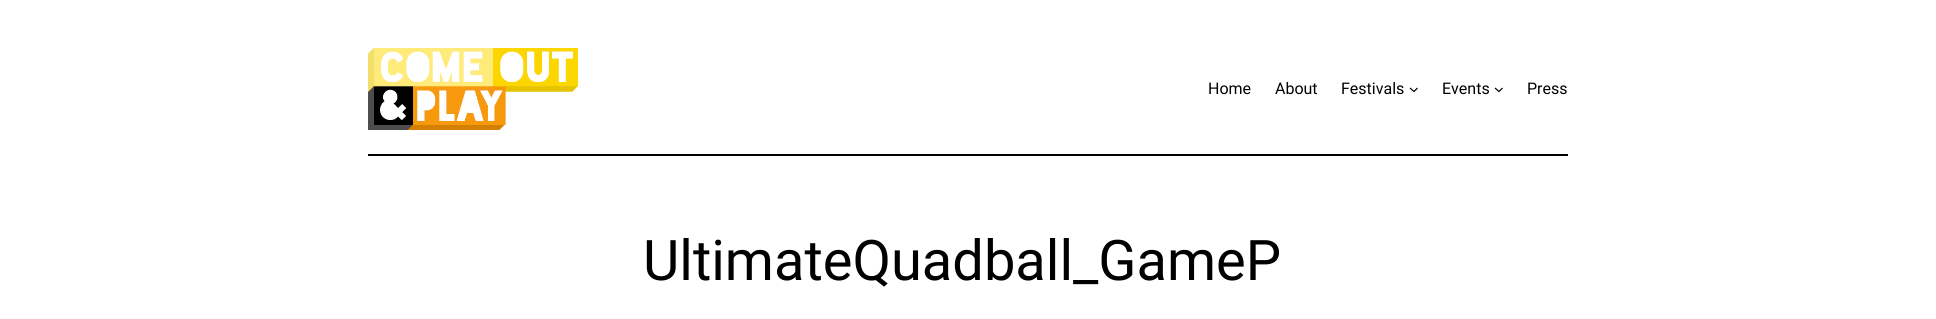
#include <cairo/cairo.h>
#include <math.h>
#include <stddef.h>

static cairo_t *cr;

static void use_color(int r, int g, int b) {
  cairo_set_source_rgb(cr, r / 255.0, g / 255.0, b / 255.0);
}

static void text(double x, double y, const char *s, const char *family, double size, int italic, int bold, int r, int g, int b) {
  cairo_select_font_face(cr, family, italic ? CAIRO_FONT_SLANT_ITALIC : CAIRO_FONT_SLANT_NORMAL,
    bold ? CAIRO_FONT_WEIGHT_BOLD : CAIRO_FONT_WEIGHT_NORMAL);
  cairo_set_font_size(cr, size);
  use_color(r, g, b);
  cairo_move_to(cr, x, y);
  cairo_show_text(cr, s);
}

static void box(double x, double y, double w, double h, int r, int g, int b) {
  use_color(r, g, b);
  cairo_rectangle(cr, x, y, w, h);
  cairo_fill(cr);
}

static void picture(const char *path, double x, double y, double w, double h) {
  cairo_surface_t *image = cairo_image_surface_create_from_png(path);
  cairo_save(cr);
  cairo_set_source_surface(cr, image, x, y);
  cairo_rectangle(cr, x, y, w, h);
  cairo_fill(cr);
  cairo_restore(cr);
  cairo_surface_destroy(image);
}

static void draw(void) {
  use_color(255, 255, 255);
  cairo_paint(cr);
  picture("img_01.png", 368, 48, 210, 82);
  cairo_new_path(cr);
  cairo_move_to(cr, 1410, 88);
  cairo_line_to(cr, 1414, 91.5);
  cairo_line_to(cr, 1417.5, 88);
  use_color(0, 0, 0);
  cairo_set_line_width(cr, 1.2);
  cairo_stroke(cr);
  cairo_new_path(cr);
  cairo_move_to(cr, 1495, 88);
  cairo_line_to(cr, 1499, 91.5);
  cairo_line_to(cr, 1502.5, 88);
  cairo_stroke(cr);
  box(368, 154, 1200, 2, 0, 0, 0);
  text(1208, 94, "Home", "Roboto", 16, 0, 0, 0, 0, 0);
  text(1275, 94, "About", "Roboto", 16, 0, 0, 0, 0, 0);
  text(1341, 94, "Festivals", "Roboto", 16, 0, 0, 0, 0, 0);
  text(1442, 94, "Events", "Roboto", 16, 0, 0, 0, 0, 0);
  text(1527, 94, "Press", "Roboto", 16, 0, 0, 0, 0, 0);
  text(643, 280, "UltimateQuadball_GameP", "Roboto", 56, 0, 0, 0, 0, 0);
}

int main(void) {
  cairo_surface_t *surface = cairo_image_surface_create(CAIRO_FORMAT_RGB24, 1936, 319);
  cr = cairo_create(surface);
  cairo_font_options_t *options = cairo_font_options_create();
  cairo_font_options_set_hint_metrics(options, CAIRO_HINT_METRICS_OFF);
  cairo_font_options_set_hint_style(options, CAIRO_HINT_STYLE_NONE);
  cairo_set_font_options(cr, options);
  cairo_set_miter_limit(cr, 4);
  draw();
  cairo_surface_write_to_png(surface, "out.png");
  cairo_font_options_destroy(options);
  cairo_destroy(cr);
  cairo_surface_destroy(surface);
  return 0;
}
